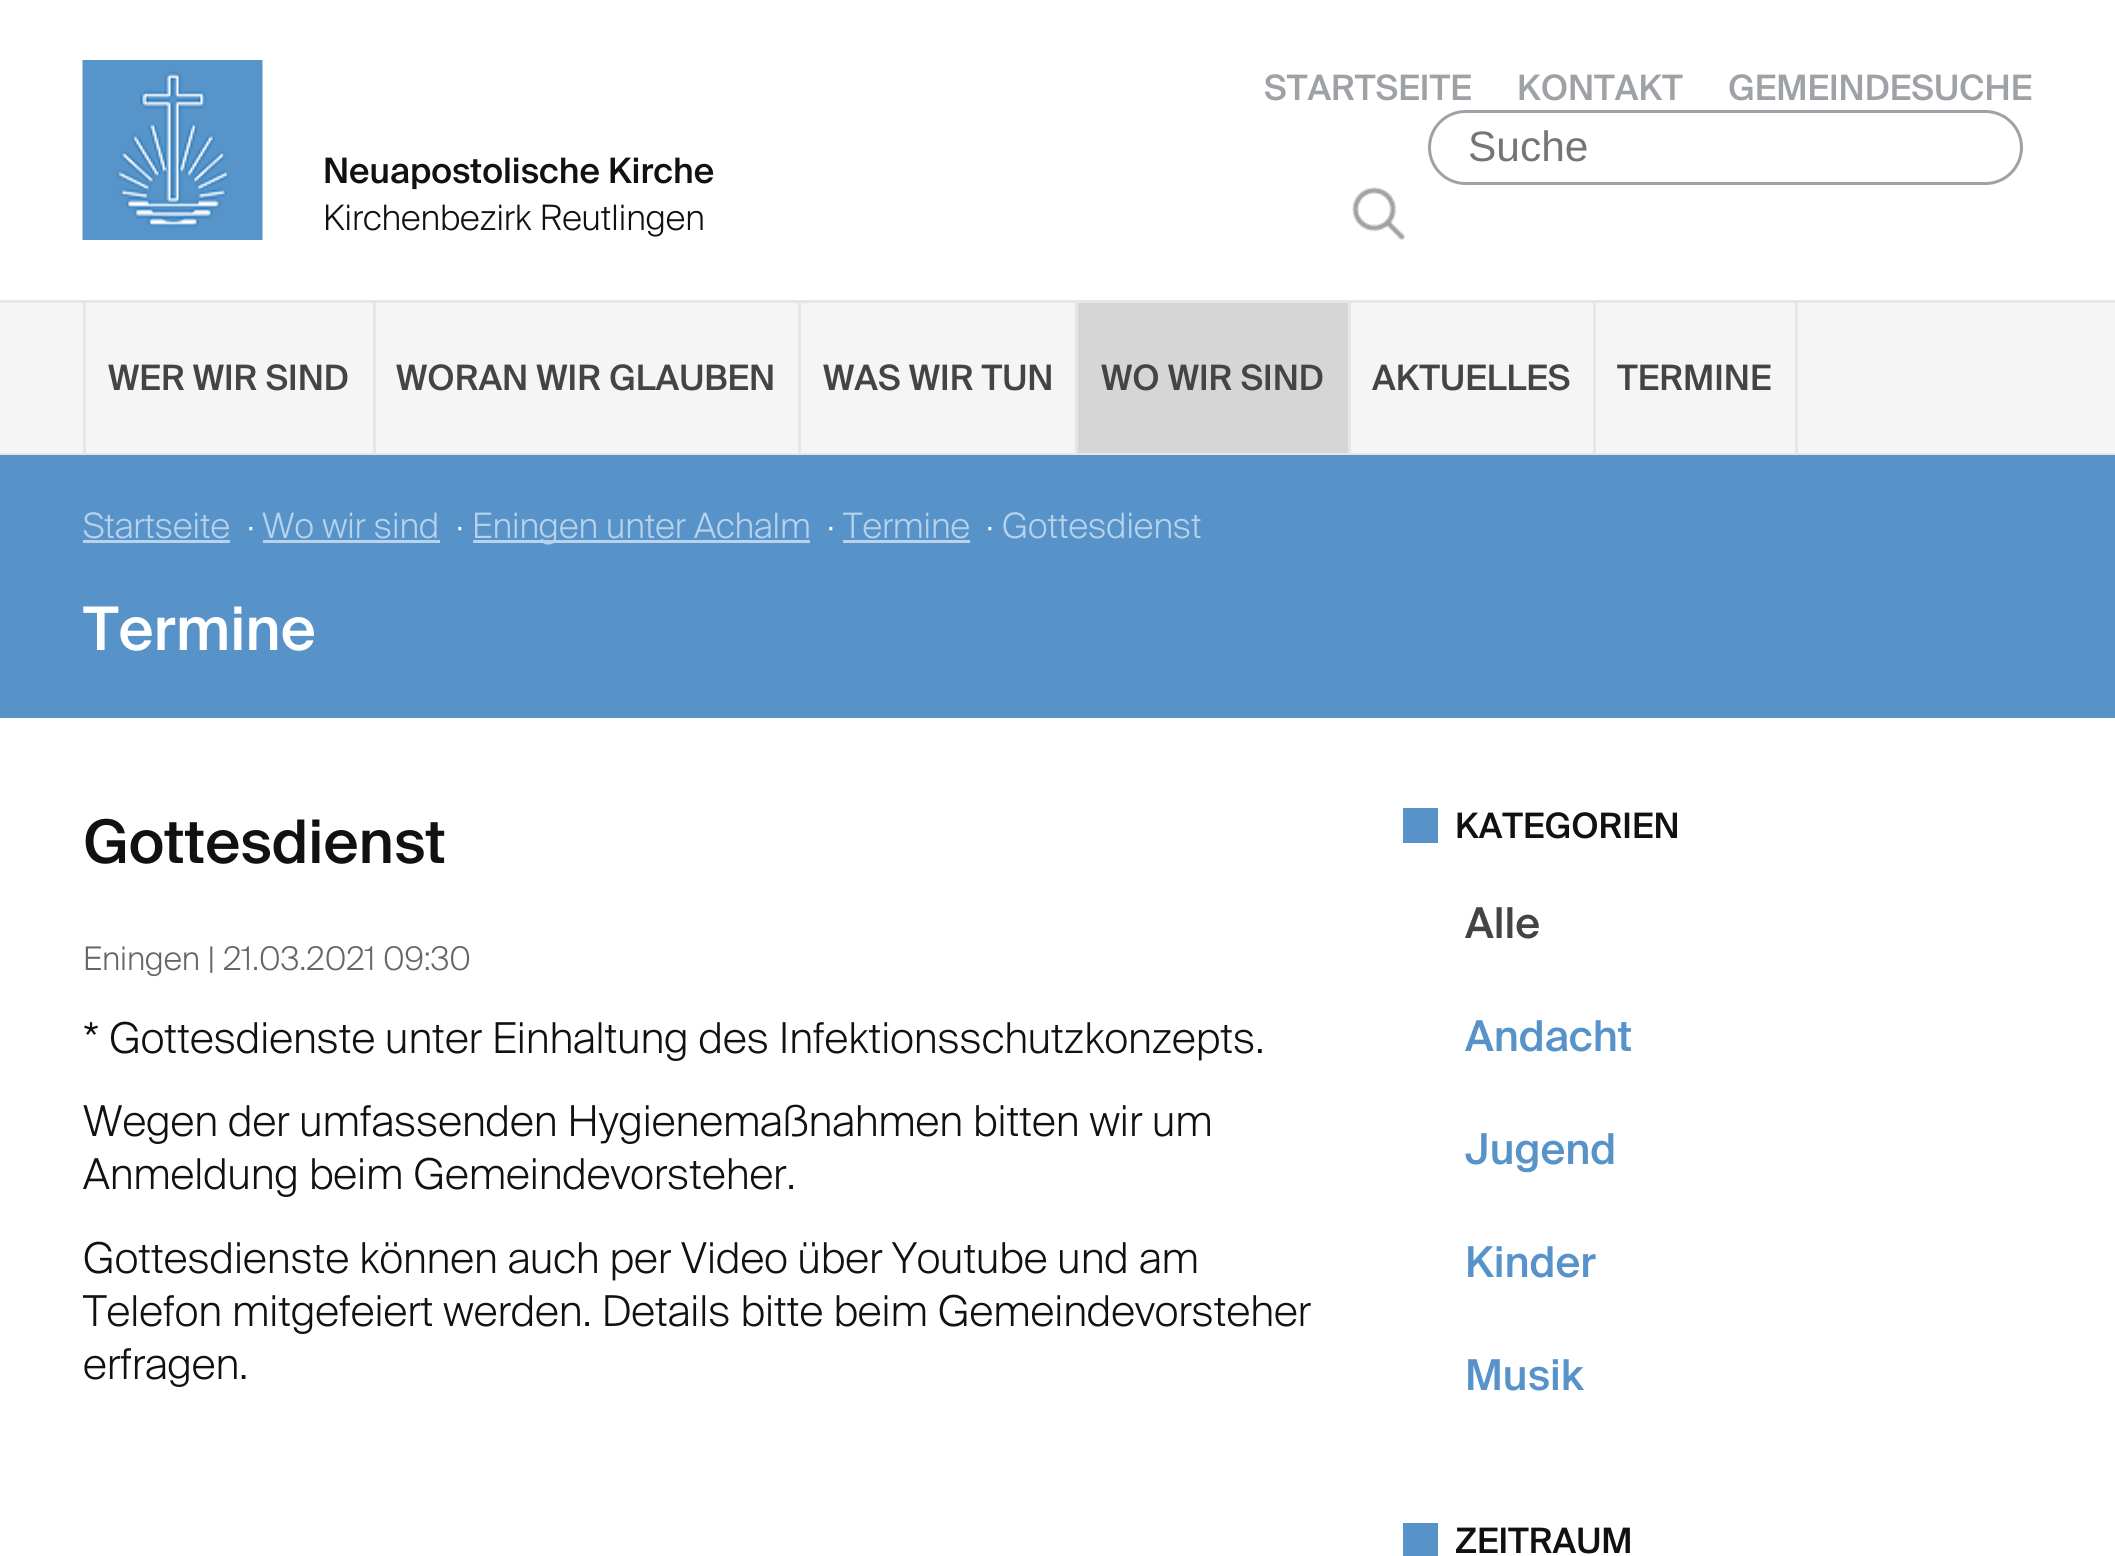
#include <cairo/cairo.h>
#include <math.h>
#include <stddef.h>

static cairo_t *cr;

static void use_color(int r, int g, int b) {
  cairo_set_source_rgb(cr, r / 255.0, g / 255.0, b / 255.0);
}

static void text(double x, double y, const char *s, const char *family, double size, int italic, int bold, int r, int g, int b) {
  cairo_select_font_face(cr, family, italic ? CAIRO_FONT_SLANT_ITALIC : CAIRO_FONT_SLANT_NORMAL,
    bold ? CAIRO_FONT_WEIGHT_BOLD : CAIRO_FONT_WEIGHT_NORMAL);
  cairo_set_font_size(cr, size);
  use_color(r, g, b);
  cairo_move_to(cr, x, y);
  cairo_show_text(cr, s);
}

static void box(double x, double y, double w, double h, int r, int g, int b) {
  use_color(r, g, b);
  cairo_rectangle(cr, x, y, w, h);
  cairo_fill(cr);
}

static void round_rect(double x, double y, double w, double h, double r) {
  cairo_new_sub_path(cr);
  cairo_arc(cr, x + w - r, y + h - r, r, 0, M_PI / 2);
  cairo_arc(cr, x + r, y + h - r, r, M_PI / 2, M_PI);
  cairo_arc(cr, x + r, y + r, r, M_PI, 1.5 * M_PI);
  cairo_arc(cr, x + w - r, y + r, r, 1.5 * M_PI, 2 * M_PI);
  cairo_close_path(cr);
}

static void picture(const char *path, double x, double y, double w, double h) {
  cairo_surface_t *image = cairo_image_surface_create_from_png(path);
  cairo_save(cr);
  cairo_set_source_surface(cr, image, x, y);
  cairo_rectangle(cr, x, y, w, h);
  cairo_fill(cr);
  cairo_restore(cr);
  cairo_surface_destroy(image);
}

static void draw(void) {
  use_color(255, 255, 255);
  cairo_paint(cr);
  round_rect(1429.5, 111.5, 592, 72, 36);
  use_color(158, 161, 166);
  cairo_set_line_width(cr, 3);
  cairo_stroke(cr);
  picture("img_01.png", 1352, 187, 53, 53);
  picture("img_02.png", 82, 60, 181, 180);
  box(0, 303, 2115, 150, 245, 245, 245);
  box(0, 300, 2115, 3, 230, 230, 230);
  box(0, 453, 2115, 2, 230, 230, 230);
  box(83, 303, 3, 150, 230, 230, 230);
  box(373, 303, 3, 150, 230, 230, 230);
  box(798, 303, 3, 150, 230, 230, 230);
  box(1075, 303, 3, 150, 230, 230, 230);
  box(1078, 303, 270, 150, 214, 214, 214);
  box(1348, 303, 3, 150, 230, 230, 230);
  box(1795, 303, 3, 150, 230, 230, 230);
  box(1593, 303, 3, 150, 230, 230, 230);
  box(0, 455, 2115, 263, 87, 147, 201);
  box(83, 540, 147, 3, 183, 210, 235);
  box(263, 540, 177, 3, 183, 210, 235);
  box(473, 540, 337, 3, 183, 210, 235);
  box(843, 540, 127, 3, 183, 210, 235);
  box(1403, 808, 35, 35, 87, 147, 201);
  box(1403, 1523, 35, 33, 87, 147, 201);
  text(1264, 100, "STARTSEITE", "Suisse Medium", 35, 0, 0, 158, 161, 166);
  text(1517, 100, "KONTAKT", "Suisse Medium", 35, 0, 0, 158, 161, 166);
  text(1728, 100, "GEMEINDESUCHE", "Suisse Medium", 35, 0, 0, 158, 161, 166);
  text(1468, 161, "Suche", "Liberation Sans", 42.5, 0, 0, 117, 117, 117);
  text(323, 183, "Neuapostolische Kirche", "Suisse Medium", 35, 0, 0, 17, 17, 17);
  text(323, 230, "Kirchenbezirk Reutlingen", "Suisse Light", 35, 0, 0, 17, 17, 17);
  text(108, 390, "WER WIR SIND", "Suisse Medium", 35, 0, 0, 68, 68, 68);
  text(396, 390, "WORAN WIR GLAUBEN", "Suisse Medium", 35, 0, 0, 68, 68, 68);
  text(823, 390, "WAS WIR TUN", "Suisse Medium", 35, 0, 0, 68, 68, 68);
  text(1101, 390, "WO WIR SIND", "Suisse Medium", 35, 0, 0, 68, 68, 68);
  text(1372, 390, "AKTUELLES", "Suisse Medium", 35, 0, 0, 68, 68, 68);
  text(1617, 390, "TERMINE", "Suisse Medium", 35, 0, 0, 68, 68, 68);
  text(83, 538, "Startseite", "Suisse Light", 35, 0, 0, 183, 210, 235);
  text(247, 538, "·", "Suisse Light", 35, 0, 0, 255, 255, 255);
  text(262, 538, "Wo wir sind", "Suisse Light", 35, 0, 0, 183, 210, 235);
  text(456, 538, "·", "Suisse Light", 35, 0, 0, 255, 255, 255);
  text(472, 538, "Eningen unter Achalm", "Suisse Light", 35, 0, 0, 183, 210, 235);
  text(827, 538, "·", "Suisse Light", 35, 0, 0, 255, 255, 255);
  text(843, 538, "Termine", "Suisse Light", 35, 0, 0, 183, 210, 235);
  text(986, 538, "·", "Suisse Light", 35, 0, 0, 255, 255, 255);
  text(1002, 538, "Gottesdienst", "Suisse Light", 35, 0, 0, 183, 210, 235);
  text(83, 650, "Termine", "Suisse Medium", 60, 0, 0, 255, 255, 255);
  text(83, 863, "Gottesdienst", "Suisse Medium", 60, 0, 0, 17, 17, 17);
  text(83, 970, "Eningen | 21.03.2021 09:30", "Suisse Light", 32.5, 0, 0, 102, 102, 102);
  text(83, 1053, "* Gottesdienste unter Einhaltung des Infektionsschutzkonzepts.", "Suisse Light", 42.5, 0, 0, 17, 17, 17);
  text(83, 1136, "Wegen der umfassenden Hygienemaßnahmen bitten wir um", "Suisse Light", 42.5, 0, 0, 17, 17, 17);
  text(83, 1189, "Anmeldung beim Gemeindevorsteher.", "Suisse Light", 42.5, 0, 0, 17, 17, 17);
  text(83, 1273, "Gottesdienste können auch per Video über Youtube und am", "Suisse Light", 42.5, 0, 0, 17, 17, 17);
  text(83, 1326, "Telefon mitgefeiert werden. Details bitte beim Gemeindevorsteher", "Suisse Light", 42.5, 0, 0, 17, 17, 17);
  text(83, 1379, "erfragen.", "Suisse Light", 42.5, 0, 0, 17, 17, 17);
  text(1455, 838, "KATEGORIEN", "Suisse Medium", 35, 0, 0, 17, 17, 17);
  text(1465, 938, "Alle", "Suisse Medium", 42.5, 0, 0, 68, 68, 68);
  text(1465, 1051, "Andacht", "Suisse Medium", 42.5, 0, 0, 87, 147, 201);
  text(1465, 1164, "Jugend", "Suisse Medium", 42.5, 0, 0, 87, 147, 201);
  text(1465, 1277, "Kinder", "Suisse Medium", 42.5, 0, 0, 87, 147, 201);
  text(1465, 1390, "Musik", "Suisse Medium", 42.5, 0, 0, 87, 147, 201);
  text(1455, 1553, "ZEITRAUM", "Suisse Medium", 35, 0, 0, 17, 17, 17);
}

int main(void) {
  cairo_surface_t *surface = cairo_image_surface_create(CAIRO_FORMAT_RGB24, 2115, 1556);
  cr = cairo_create(surface);
  cairo_font_options_t *options = cairo_font_options_create();
  cairo_font_options_set_hint_metrics(options, CAIRO_HINT_METRICS_OFF);
  cairo_font_options_set_hint_style(options, CAIRO_HINT_STYLE_NONE);
  cairo_set_font_options(cr, options);
  cairo_set_miter_limit(cr, 4);
  draw();
  cairo_surface_write_to_png(surface, "out.png");
  cairo_font_options_destroy(options);
  cairo_destroy(cr);
  cairo_surface_destroy(surface);
  return 0;
}
